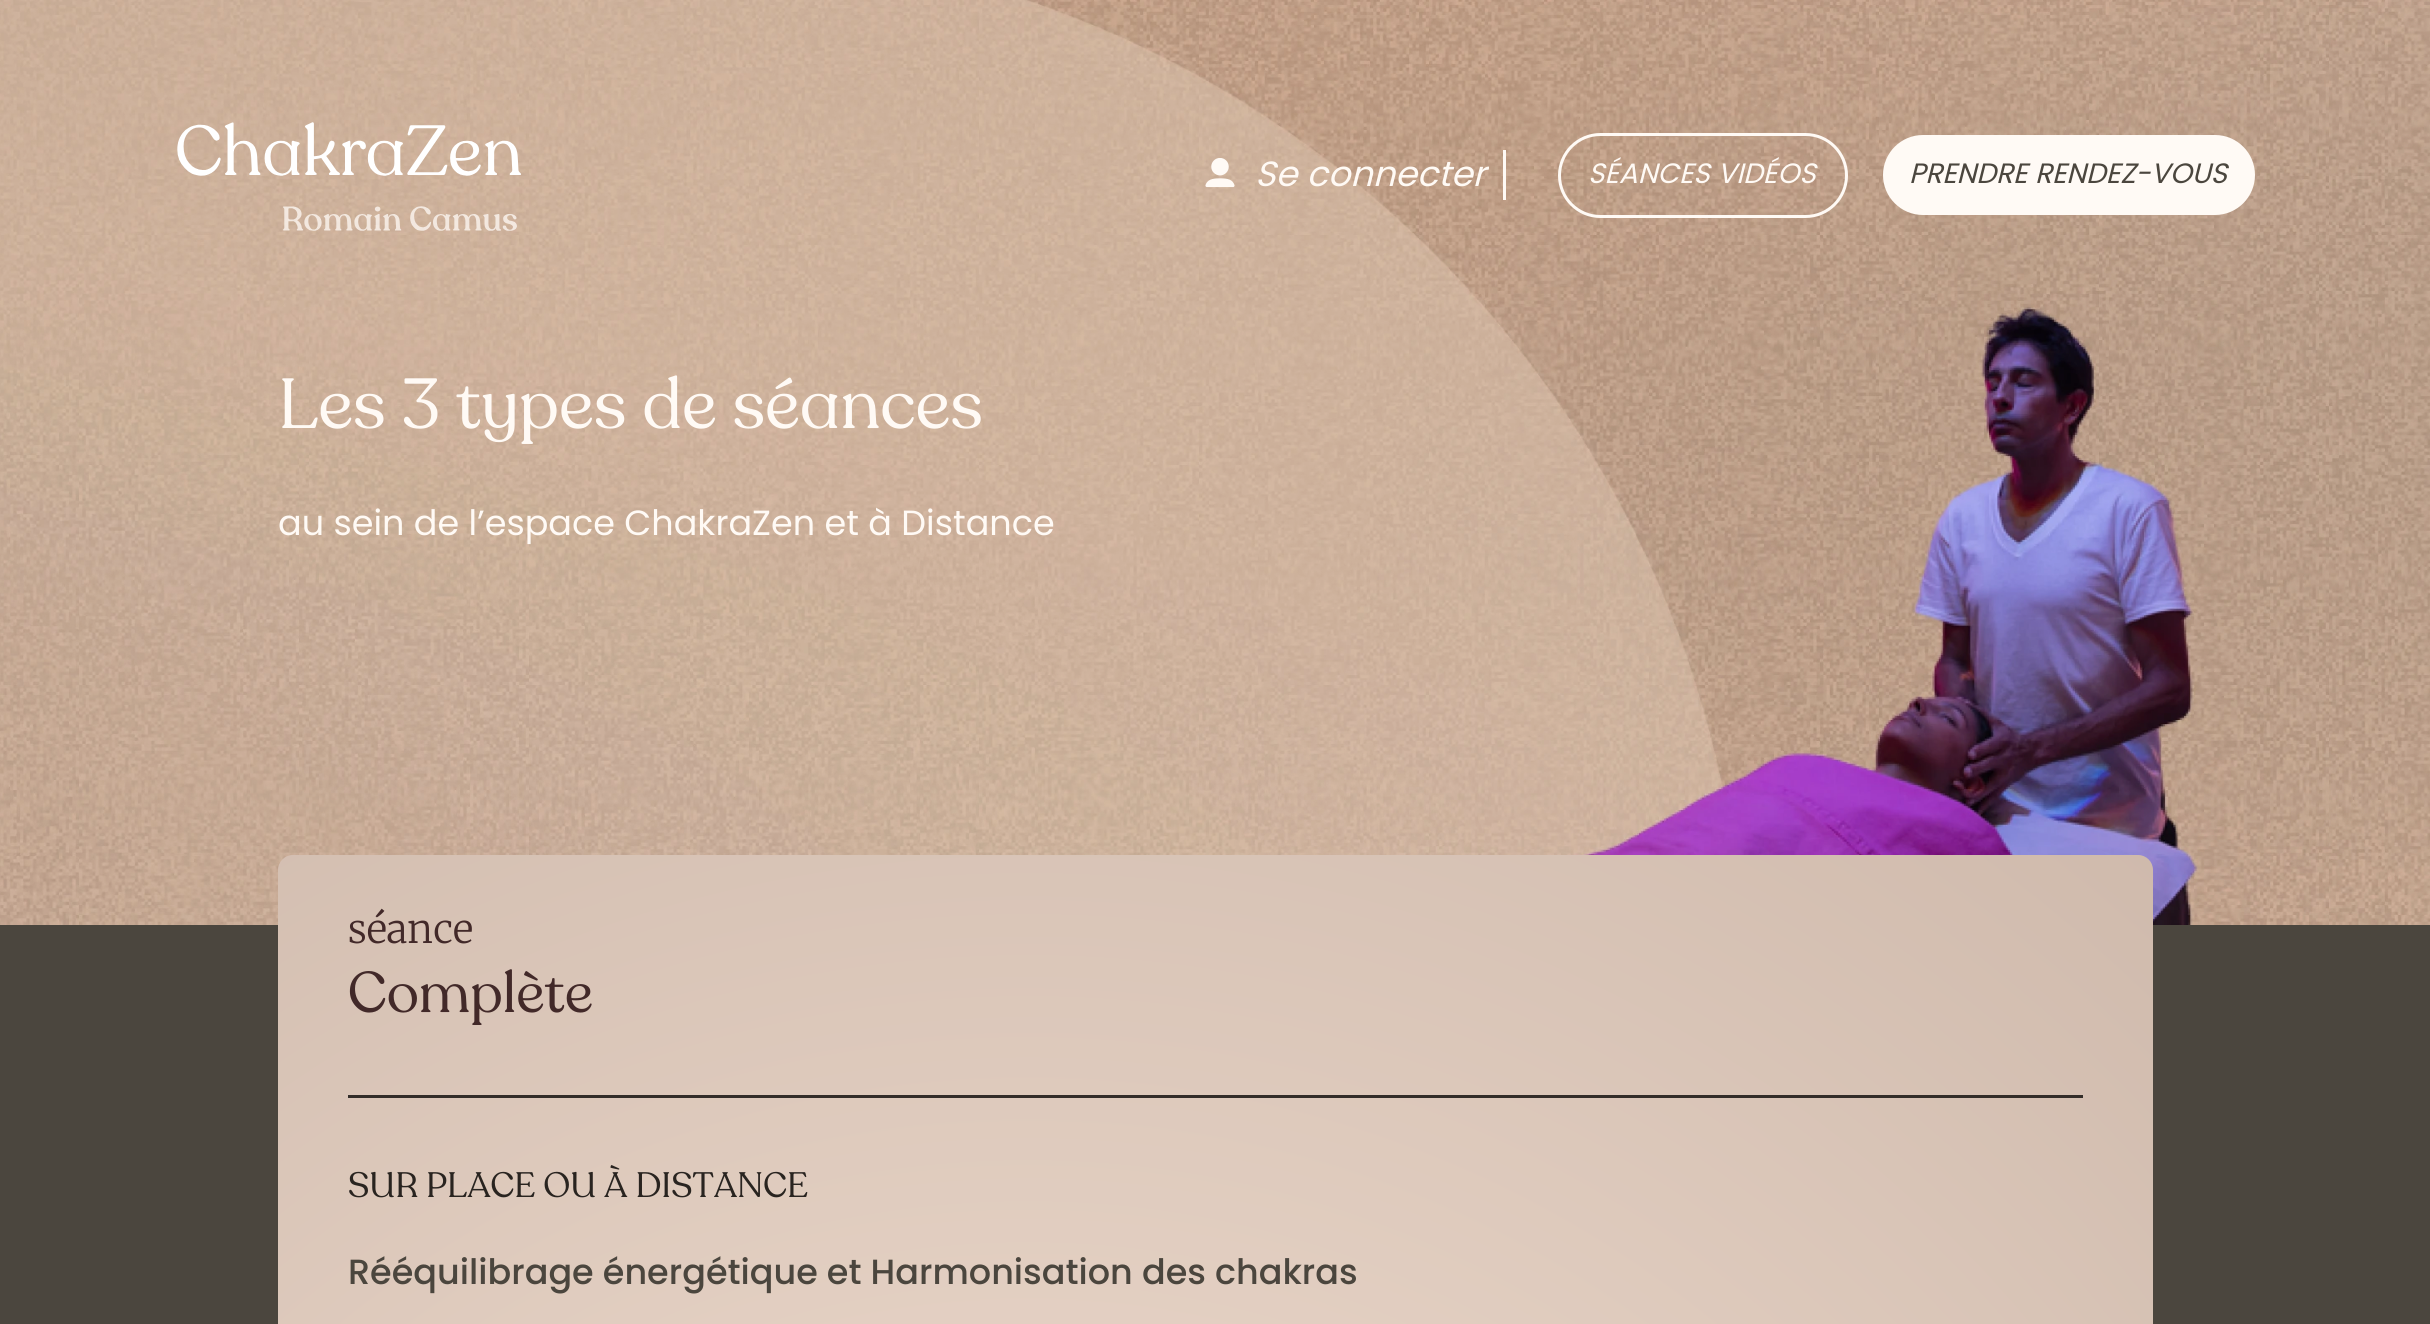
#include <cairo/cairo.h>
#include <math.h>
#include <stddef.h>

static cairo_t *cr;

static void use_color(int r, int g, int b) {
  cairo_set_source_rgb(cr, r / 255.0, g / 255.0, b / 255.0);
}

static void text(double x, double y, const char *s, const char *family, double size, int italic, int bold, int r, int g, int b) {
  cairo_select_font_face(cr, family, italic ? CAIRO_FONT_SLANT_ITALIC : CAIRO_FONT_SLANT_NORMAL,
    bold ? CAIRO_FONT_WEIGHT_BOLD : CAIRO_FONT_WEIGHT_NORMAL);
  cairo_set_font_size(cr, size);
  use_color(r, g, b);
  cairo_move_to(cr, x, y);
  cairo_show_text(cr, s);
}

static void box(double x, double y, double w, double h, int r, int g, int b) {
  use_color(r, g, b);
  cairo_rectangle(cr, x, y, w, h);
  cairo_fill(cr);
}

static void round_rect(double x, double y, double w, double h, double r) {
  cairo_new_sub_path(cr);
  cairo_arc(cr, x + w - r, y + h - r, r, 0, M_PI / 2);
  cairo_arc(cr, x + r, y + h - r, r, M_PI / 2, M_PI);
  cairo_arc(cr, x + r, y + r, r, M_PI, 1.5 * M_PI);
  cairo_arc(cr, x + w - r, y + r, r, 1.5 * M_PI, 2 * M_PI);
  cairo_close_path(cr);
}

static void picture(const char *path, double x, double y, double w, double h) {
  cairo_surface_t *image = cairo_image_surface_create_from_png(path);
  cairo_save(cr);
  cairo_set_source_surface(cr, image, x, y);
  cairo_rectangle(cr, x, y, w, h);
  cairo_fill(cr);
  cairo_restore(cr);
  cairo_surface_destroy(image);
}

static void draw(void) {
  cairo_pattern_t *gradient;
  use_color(255, 255, 255);
  cairo_paint(cr);
  picture("img_01.png", 0, 0, 2430, 925);
  picture("img_02.png", 177, 122, 344, 109);
  box(1503, 150, 3, 50, 255, 250, 245);
  picture("img_03.png", 1205, 158, 30, 30);
  round_rect(1559.5, 134.5, 287, 82, 41);
  cairo_set_line_width(cr, 3);
  cairo_stroke(cr);
  round_rect(1883, 135, 372, 80, 40);
  cairo_fill(cr);
  box(0, 925, 2430, 399, 75, 70, 62);
  gradient = cairo_pattern_create_radial(1028, 2164, 0, 1028, 2164, 1726);
  cairo_pattern_add_color_stop_rgba(gradient, 0, 0.965, 0.894, 0.843, 1);
  cairo_pattern_add_color_stop_rgba(gradient, 1, 0.812, 0.729, 0.675, 1);
  cairo_set_source(cr, gradient);
  cairo_pattern_destroy(gradient);
  round_rect(278, 855, 1875, 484, 15);
  cairo_fill(cr);
  box(348, 1095, 1735, 3, 51, 45, 41);
  text(1255, 186, "Se connecter", "Poppins", 35, 1, 0, 255, 250, 245);
  text(1588, 183, "SÉANCES VIDÉOS", "Poppins", 28, 1, 0, 255, 250, 245);
  text(1909, 183, "PRENDRE RENDEZ-VOUS", "Poppins", 28, 1, 0, 75, 70, 62);
  text(278, 428, "Les 3 types de séances", "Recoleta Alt", 70, 0, 0, 255, 250, 245);
  text(278, 535, "au sein de l’espace ChakraZen et à Distance", "Poppins", 35, 0, 0, 255, 250, 245);
  text(348, 943, "séance", "Merriweather Light", 39.5, 0, 0, 66, 41, 41);
  text(348, 1012, "Complète", "Recoleta Alt", 57, 0, 0, 66, 41, 41);
  text(348, 1197, "SUR PLACE OU À DISTANCE", "Recoleta Alt", 35, 0, 0, 41, 36, 32);
  text(348, 1284, "Rééquilibrage énergétique et Harmonisation des chakras", "Poppins Medium", 35, 0, 0, 75, 70, 62);
}

int main(void) {
  cairo_surface_t *surface = cairo_image_surface_create(CAIRO_FORMAT_RGB24, 2430, 1324);
  cr = cairo_create(surface);
  cairo_font_options_t *options = cairo_font_options_create();
  cairo_font_options_set_hint_metrics(options, CAIRO_HINT_METRICS_OFF);
  cairo_font_options_set_hint_style(options, CAIRO_HINT_STYLE_NONE);
  cairo_set_font_options(cr, options);
  cairo_set_miter_limit(cr, 4);
  draw();
  cairo_surface_write_to_png(surface, "out.png");
  cairo_font_options_destroy(options);
  cairo_destroy(cr);
  cairo_surface_destroy(surface);
  return 0;
}
